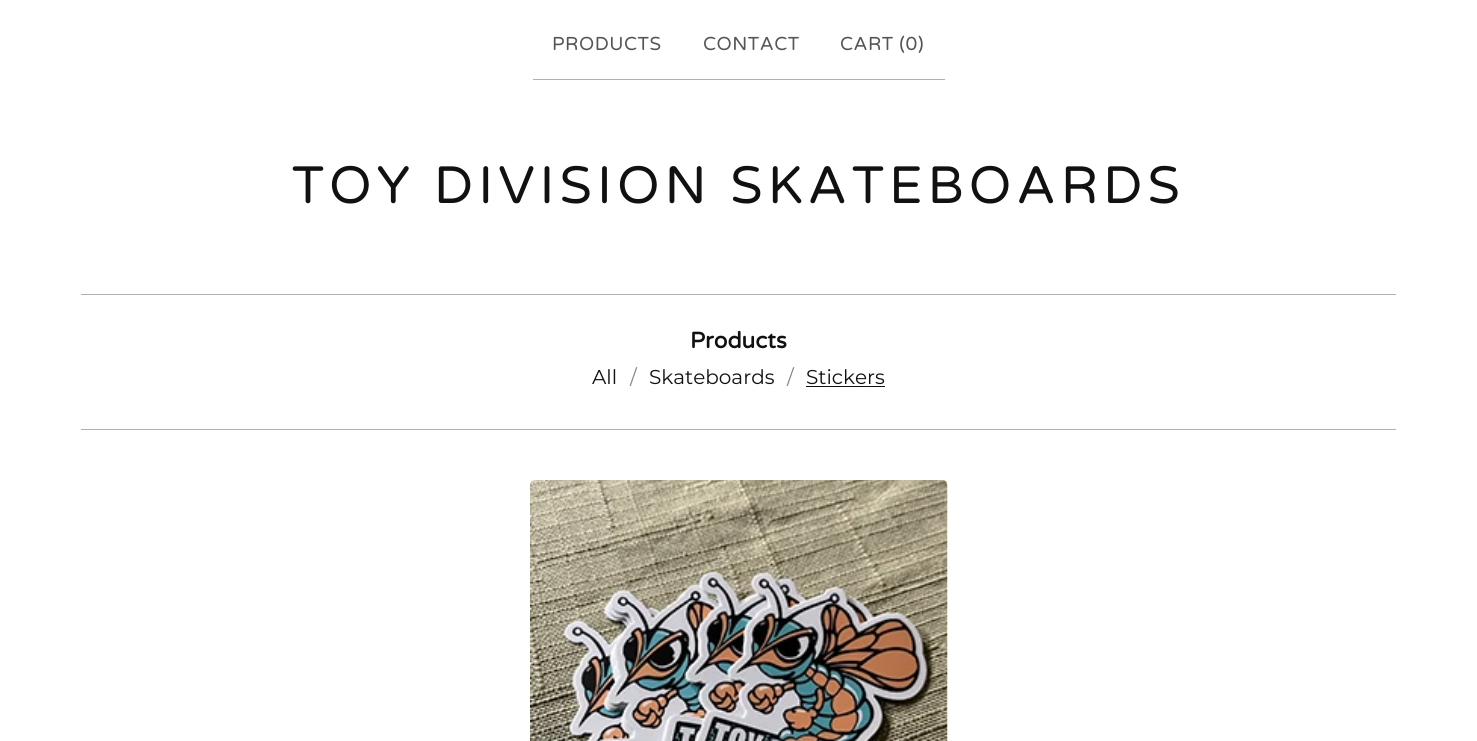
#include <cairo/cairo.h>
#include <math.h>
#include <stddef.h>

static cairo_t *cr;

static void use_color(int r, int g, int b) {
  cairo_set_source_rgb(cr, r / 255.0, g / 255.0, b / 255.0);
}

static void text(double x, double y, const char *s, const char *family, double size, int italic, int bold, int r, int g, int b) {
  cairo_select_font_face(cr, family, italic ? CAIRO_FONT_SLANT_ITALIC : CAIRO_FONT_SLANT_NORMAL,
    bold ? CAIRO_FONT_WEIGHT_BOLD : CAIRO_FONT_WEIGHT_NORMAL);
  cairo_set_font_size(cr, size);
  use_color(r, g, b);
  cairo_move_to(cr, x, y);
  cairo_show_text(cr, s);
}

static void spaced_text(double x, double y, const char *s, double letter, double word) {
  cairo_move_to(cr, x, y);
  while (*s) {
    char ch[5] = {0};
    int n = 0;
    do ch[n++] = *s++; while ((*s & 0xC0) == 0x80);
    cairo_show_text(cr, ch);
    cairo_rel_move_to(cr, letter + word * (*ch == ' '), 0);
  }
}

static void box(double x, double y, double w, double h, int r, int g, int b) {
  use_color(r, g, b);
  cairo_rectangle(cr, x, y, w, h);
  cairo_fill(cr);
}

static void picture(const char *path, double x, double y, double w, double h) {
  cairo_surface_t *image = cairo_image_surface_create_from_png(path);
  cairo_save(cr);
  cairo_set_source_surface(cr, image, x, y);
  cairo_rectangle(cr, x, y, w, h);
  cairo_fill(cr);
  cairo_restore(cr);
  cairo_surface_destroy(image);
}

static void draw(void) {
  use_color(255, 255, 255);
  cairo_paint(cr);
  box(533, 79, 412, 1, 177, 177, 177);
  box(81, 294, 1315, 1, 177, 177, 177);
  box(81, 429, 1315, 1, 177, 177, 177);
  box(806, 386, 79, 1, 17, 17, 17);
  picture("img_01.png", 530, 480, 418, 261);
  cairo_select_font_face(cr, "Varela Round", CAIRO_FONT_SLANT_NORMAL, CAIRO_FONT_WEIGHT_NORMAL);
  cairo_set_font_size(cr, 18.75);
  use_color(85, 85, 85);
  spaced_text(552, 50, "PRODUCTS", 0.5, 0);
  spaced_text(703, 50, "CONTACT", 0.5, 0);
  spaced_text(840, 50, "CART (0)", 0.5, 0);
  cairo_set_font_size(cr, 52.5);
  use_color(17, 17, 17);
  spaced_text(292, 203, "TOY DIVISION SKATEBOARDS", 5, 0);
  text(690, 348, "Products", "Varela Round", 22.5, 0, 1, 17, 17, 17);
  text(592, 384, "All", "Montserrat", 20, 0, 0, 17, 17, 17);
  text(630, 384, "/", "Montserrat", 20, 0, 0, 136, 136, 136);
  text(649, 384, "Skateboards", "Montserrat", 20, 0, 0, 17, 17, 17);
  text(787, 384, "/", "Montserrat", 20, 0, 0, 136, 136, 136);
  text(806, 384, "Stickers", "Montserrat", 20, 0, 0, 17, 17, 17);
}

int main(void) {
  cairo_surface_t *surface = cairo_image_surface_create(CAIRO_FORMAT_RGB24, 1477, 741);
  cr = cairo_create(surface);
  cairo_font_options_t *options = cairo_font_options_create();
  cairo_font_options_set_hint_metrics(options, CAIRO_HINT_METRICS_OFF);
  cairo_font_options_set_hint_style(options, CAIRO_HINT_STYLE_NONE);
  cairo_set_font_options(cr, options);
  cairo_set_miter_limit(cr, 4);
  draw();
  cairo_surface_write_to_png(surface, "out.png");
  cairo_font_options_destroy(options);
  cairo_destroy(cr);
  cairo_surface_destroy(surface);
  return 0;
}
